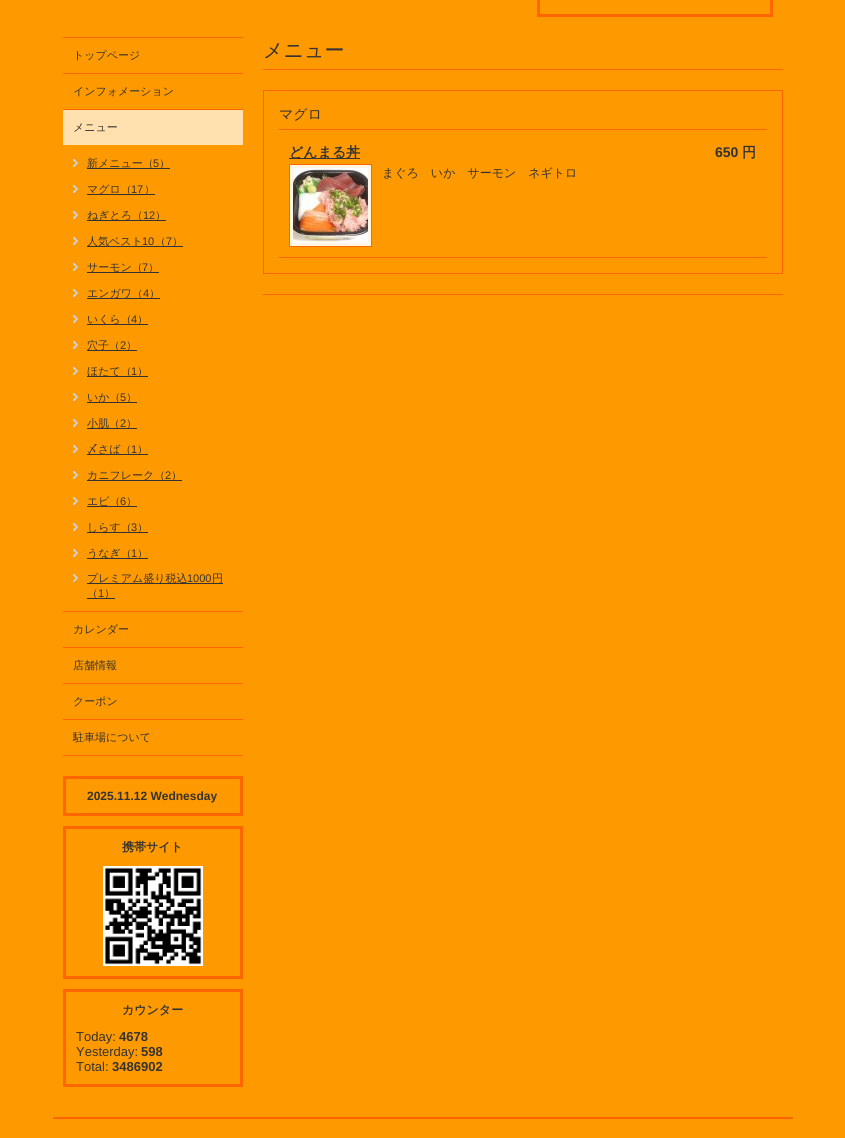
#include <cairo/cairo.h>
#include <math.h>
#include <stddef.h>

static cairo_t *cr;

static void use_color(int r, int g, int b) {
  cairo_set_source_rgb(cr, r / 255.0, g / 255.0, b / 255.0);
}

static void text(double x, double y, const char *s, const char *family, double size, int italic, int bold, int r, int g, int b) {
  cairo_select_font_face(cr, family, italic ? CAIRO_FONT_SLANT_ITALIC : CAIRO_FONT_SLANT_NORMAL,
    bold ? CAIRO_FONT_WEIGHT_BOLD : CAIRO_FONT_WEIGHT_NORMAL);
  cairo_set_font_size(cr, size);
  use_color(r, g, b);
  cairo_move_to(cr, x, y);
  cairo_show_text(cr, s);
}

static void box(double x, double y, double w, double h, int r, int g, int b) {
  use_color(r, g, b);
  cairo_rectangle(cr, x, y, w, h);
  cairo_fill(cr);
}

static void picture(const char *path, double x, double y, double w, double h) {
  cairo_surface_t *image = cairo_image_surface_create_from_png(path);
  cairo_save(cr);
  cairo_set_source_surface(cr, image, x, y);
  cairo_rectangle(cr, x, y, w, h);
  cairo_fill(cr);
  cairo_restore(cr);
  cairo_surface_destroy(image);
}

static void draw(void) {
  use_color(255, 153, 0);
  cairo_paint(cr);
  cairo_rectangle(cr, 538.5, -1.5, 233, 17);
  use_color(255, 102, 0);
  cairo_set_line_width(cr, 3);
  cairo_stroke(cr);
  box(63, 37, 180, 1, 255, 102, 0);
  box(63, 73, 180, 1, 255, 102, 0);
  box(63, 109, 180, 1, 255, 102, 0);
  box(63, 611, 180, 1, 255, 102, 0);
  box(63, 110, 180, 35, 255, 224, 174);
  picture("img_01.png", 73, 159, 5, 8);
  box(87, 168, 83, 1, 51, 51, 51);
  picture("img_01.png", 73, 185, 5, 8);
  box(87, 194, 68, 1, 51, 51, 51);
  picture("img_01.png", 73, 211, 5, 8);
  box(87, 220, 79, 1, 51, 51, 51);
  picture("img_01.png", 73, 237, 5, 8);
  box(87, 246, 96, 1, 51, 51, 51);
  picture("img_01.png", 73, 263, 5, 8);
  box(87, 272, 72, 1, 51, 51, 51);
  picture("img_01.png", 73, 289, 5, 8);
  box(87, 298, 73, 1, 51, 51, 51);
  picture("img_01.png", 73, 315, 5, 8);
  box(87, 324, 61, 1, 51, 51, 51);
  picture("img_01.png", 73, 341, 5, 8);
  box(87, 350, 50, 1, 51, 51, 51);
  picture("img_01.png", 73, 367, 5, 8);
  box(87, 376, 61, 1, 51, 51, 51);
  picture("img_01.png", 73, 393, 5, 8);
  box(87, 402, 50, 1, 51, 51, 51);
  picture("img_01.png", 73, 419, 5, 8);
  box(87, 428, 50, 1, 51, 51, 51);
  picture("img_01.png", 73, 445, 5, 8);
  box(87, 454, 61, 1, 51, 51, 51);
  picture("img_01.png", 73, 471, 5, 8);
  box(87, 480, 95, 1, 51, 51, 51);
  picture("img_01.png", 73, 497, 5, 8);
  box(87, 506, 50, 1, 51, 51, 51);
  picture("img_01.png", 73, 523, 5, 8);
  box(87, 532, 61, 1, 51, 51, 51);
  picture("img_01.png", 73, 549, 5, 8);
  box(87, 558, 61, 1, 51, 51, 51);
  picture("img_01.png", 73, 574, 5, 8);
  box(87, 583, 136, 1, 51, 51, 51);
  box(87, 598, 28, 1, 51, 51, 51);
  box(63, 647, 180, 1, 255, 102, 0);
  box(63, 683, 180, 1, 255, 102, 0);
  box(63, 719, 180, 1, 255, 102, 0);
  box(63, 755, 180, 1, 255, 102, 0);
  box(263, 69, 520, 1, 255, 102, 0);
  box(263, 294, 520, 1, 255, 102, 0);
  cairo_rectangle(cr, 263.5, 90.5, 519, 183);
  cairo_set_line_width(cr, 1);
  cairo_stroke(cr);
  box(279, 129, 488, 1, 255, 102, 0);
  box(279, 257, 488, 1, 255, 102, 0);
  box(289, 158, 71, 1, 51, 51, 51);
  use_color(255, 245, 227);
  cairo_rectangle(cr, 289.5, 164.5, 82, 82);
  cairo_fill_preserve(cr);
  use_color(255, 102, 0);
  cairo_stroke(cr);
  picture("img_02.png", 293, 168, 75, 75);
  cairo_rectangle(cr, 64.5, 777.5, 177, 37);
  cairo_set_line_width(cr, 3);
  cairo_stroke(cr);
  cairo_rectangle(cr, 64.5, 827.5, 177, 150);
  cairo_stroke(cr);
  picture("img_03.png", 103, 866, 100, 100);
  cairo_rectangle(cr, 64.5, 990.5, 177, 95);
  cairo_stroke(cr);
  box(53, 1117, 740, 2, 255, 102, 0);
  text(73, 59, "トップページ", "WenQuanYi Zen Hei Medium", 11, 0, 0, 51, 51, 51);
  text(73, 95, "インフォメーション", "WenQuanYi Zen Hei Medium", 11, 0, 0, 51, 51, 51);
  text(73, 131, "メニュー", "WenQuanYi Zen Hei Medium", 11, 0, 0, 51, 51, 51);
  text(87, 167, "新メニュー（", "WenQuanYi Zen Hei Medium", 11, 0, 0, 51, 51, 51);
  text(153, 167, "5", "Liberation Sans", 11, 0, 0, 51, 51, 51);
  text(159, 167, "）", "WenQuanYi Zen Hei Medium", 11, 0, 0, 51, 51, 51);
  text(87, 193, "マグロ（", "WenQuanYi Zen Hei Medium", 11, 0, 0, 51, 51, 51);
  text(131, 193, "17", "Liberation Sans", 11, 0, 0, 51, 51, 51);
  text(144, 193, "）", "WenQuanYi Zen Hei Medium", 11, 0, 0, 51, 51, 51);
  text(87, 219, "ねぎとろ（", "WenQuanYi Zen Hei Medium", 11, 0, 0, 51, 51, 51);
  text(143, 219, "12", "Liberation Sans", 11, 0, 0, 51, 51, 51);
  text(155, 219, "）", "WenQuanYi Zen Hei Medium", 11, 0, 0, 51, 51, 51);
  text(87, 245, "人気ベスト", "WenQuanYi Zen Hei Medium", 11, 0, 0, 51, 51, 51);
  text(142, 245, "10", "Liberation Sans", 11, 0, 0, 51, 51, 51);
  text(155, 245, "（", "WenQuanYi Zen Hei Medium", 11, 0, 0, 51, 51, 51);
  text(166, 245, "7", "Liberation Sans", 11, 0, 0, 51, 51, 51);
  text(172, 245, "）", "WenQuanYi Zen Hei Medium", 11, 0, 0, 51, 51, 51);
  text(87, 271, "サーモン（", "WenQuanYi Zen Hei Medium", 11, 0, 0, 51, 51, 51);
  text(142, 271, "7", "Liberation Sans", 11, 0, 0, 51, 51, 51);
  text(148, 271, "）", "WenQuanYi Zen Hei Medium", 11, 0, 0, 51, 51, 51);
  text(87, 297, "エンガワ（", "WenQuanYi Zen Hei Medium", 11, 0, 0, 51, 51, 51);
  text(143, 297, "4", "Liberation Sans", 11, 0, 0, 51, 51, 51);
  text(149, 297, "）", "WenQuanYi Zen Hei Medium", 11, 0, 0, 51, 51, 51);
  text(87, 323, "いくら（", "WenQuanYi Zen Hei Medium", 11, 0, 0, 51, 51, 51);
  text(131, 323, "4", "Liberation Sans", 11, 0, 0, 51, 51, 51);
  text(137, 323, "）", "WenQuanYi Zen Hei Medium", 11, 0, 0, 51, 51, 51);
  text(87, 349, "穴子（", "WenQuanYi Zen Hei Medium", 11, 0, 0, 51, 51, 51);
  text(120, 349, "2", "Liberation Sans", 11, 0, 0, 51, 51, 51);
  text(126, 349, "）", "WenQuanYi Zen Hei Medium", 11, 0, 0, 51, 51, 51);
  text(87, 375, "ほたて（", "WenQuanYi Zen Hei Medium", 11, 0, 0, 51, 51, 51);
  text(131, 375, "1", "Liberation Sans", 11, 0, 0, 51, 51, 51);
  text(137, 375, "）", "WenQuanYi Zen Hei Medium", 11, 0, 0, 51, 51, 51);
  text(87, 401, "いか（", "WenQuanYi Zen Hei Medium", 11, 0, 0, 51, 51, 51);
  text(120, 401, "5", "Liberation Sans", 11, 0, 0, 51, 51, 51);
  text(126, 401, "）", "WenQuanYi Zen Hei Medium", 11, 0, 0, 51, 51, 51);
  text(87, 427, "小肌（", "WenQuanYi Zen Hei Medium", 11, 0, 0, 51, 51, 51);
  text(120, 427, "2", "Liberation Sans", 11, 0, 0, 51, 51, 51);
  text(126, 427, "）", "WenQuanYi Zen Hei Medium", 11, 0, 0, 51, 51, 51);
  text(87, 453, "〆さば（", "WenQuanYi Zen Hei Medium", 11, 0, 0, 51, 51, 51);
  text(131, 453, "1", "Liberation Sans", 11, 0, 0, 51, 51, 51);
  text(137, 453, "）", "WenQuanYi Zen Hei Medium", 11, 0, 0, 51, 51, 51);
  text(87, 479, "カニフレーク（", "WenQuanYi Zen Hei Medium", 11, 0, 0, 51, 51, 51);
  text(165, 479, "2", "Liberation Sans", 11, 0, 0, 51, 51, 51);
  text(171, 479, "）", "WenQuanYi Zen Hei Medium", 11, 0, 0, 51, 51, 51);
  text(87, 505, "エビ（", "WenQuanYi Zen Hei Medium", 11, 0, 0, 51, 51, 51);
  text(120, 505, "6", "Liberation Sans", 11, 0, 0, 51, 51, 51);
  text(126, 505, "）", "WenQuanYi Zen Hei Medium", 11, 0, 0, 51, 51, 51);
  text(87, 531, "しらす（", "WenQuanYi Zen Hei Medium", 11, 0, 0, 51, 51, 51);
  text(131, 531, "3", "Liberation Sans", 11, 0, 0, 51, 51, 51);
  text(137, 531, "）", "WenQuanYi Zen Hei Medium", 11, 0, 0, 51, 51, 51);
  text(87, 557, "うなぎ（", "WenQuanYi Zen Hei Medium", 11, 0, 0, 51, 51, 51);
  text(131, 557, "1", "Liberation Sans", 11, 0, 0, 51, 51, 51);
  text(137, 557, "）", "WenQuanYi Zen Hei Medium", 11, 0, 0, 51, 51, 51);
  text(87, 582, "プレミアム盛り税込", "WenQuanYi Zen Hei Medium", 11, 0, 0, 51, 51, 51);
  text(187, 582, "1000", "Liberation Sans", 11, 0, 0, 51, 51, 51);
  text(212, 582, "円", "WenQuanYi Zen Hei Medium", 11, 0, 0, 51, 51, 51);
  text(87, 597, "（", "WenQuanYi Zen Hei Medium", 11, 0, 0, 51, 51, 51);
  text(98, 597, "1", "Liberation Sans", 11, 0, 0, 51, 51, 51);
  text(104, 597, "）", "WenQuanYi Zen Hei Medium", 11, 0, 0, 51, 51, 51);
  text(73, 633, "カレンダー", "WenQuanYi Zen Hei Medium", 11, 0, 0, 51, 51, 51);
  text(73, 669, "店舗情報", "WenQuanYi Zen Hei Medium", 11, 0, 0, 51, 51, 51);
  text(73, 705, "クーポン", "WenQuanYi Zen Hei Medium", 11, 0, 0, 51, 51, 51);
  text(73, 741, "駐車場について", "WenQuanYi Zen Hei Medium", 11, 0, 0, 51, 51, 51);
  text(263, 57, "メニュー", "WenQuanYi Zen Hei Medium", 20, 0, 0, 51, 51, 51);
  text(279, 119, "マグロ", "WenQuanYi Zen Hei Medium", 14, 0, 0, 51, 51, 51);
  text(289, 157, "どんまる丼", "WenQuanYi Zen Hei", 14, 0, 1, 51, 51, 51);
  text(715, 157, "650", "Liberation Sans", 14, 0, 1, 51, 51, 51);
  text(742, 157, "円", "WenQuanYi Zen Hei", 14, 0, 1, 51, 51, 51);
  text(382, 177, "まぐろ　いか　サーモン　ネギトロ", "WenQuanYi Zen Hei Medium", 12, 0, 0, 51, 51, 51);
  text(87, 800, "2025.11.12 Wednesday", "Liberation Sans", 12, 0, 1, 51, 51, 51);
  text(122, 851, "携帯サイト", "WenQuanYi Zen Hei", 12, 0, 1, 51, 51, 51);
  text(122, 1014, "カウンター", "WenQuanYi Zen Hei", 12, 0, 1, 51, 51, 51);
  text(76, 1041, "Today:", "Liberation Sans", 13, 0, 0, 51, 51, 51);
  text(119, 1041, "4678", "Liberation Sans", 13, 0, 1, 51, 51, 51);
  text(76, 1056, "Yesterday:", "Liberation Sans", 13, 0, 0, 51, 51, 51);
  text(141, 1056, "598", "Liberation Sans", 13, 0, 1, 51, 51, 51);
  text(76, 1071, "Total:", "Liberation Sans", 13, 0, 0, 51, 51, 51);
  text(112, 1071, "3486902", "Liberation Sans", 13, 0, 1, 51, 51, 51);
}

int main(void) {
  cairo_surface_t *surface = cairo_image_surface_create(CAIRO_FORMAT_RGB24, 845, 1138);
  cr = cairo_create(surface);
  cairo_font_options_t *options = cairo_font_options_create();
  cairo_font_options_set_hint_metrics(options, CAIRO_HINT_METRICS_OFF);
  cairo_font_options_set_hint_style(options, CAIRO_HINT_STYLE_NONE);
  cairo_set_font_options(cr, options);
  cairo_set_miter_limit(cr, 4);
  draw();
  cairo_surface_write_to_png(surface, "out.png");
  cairo_font_options_destroy(options);
  cairo_destroy(cr);
  cairo_surface_destroy(surface);
  return 0;
}
